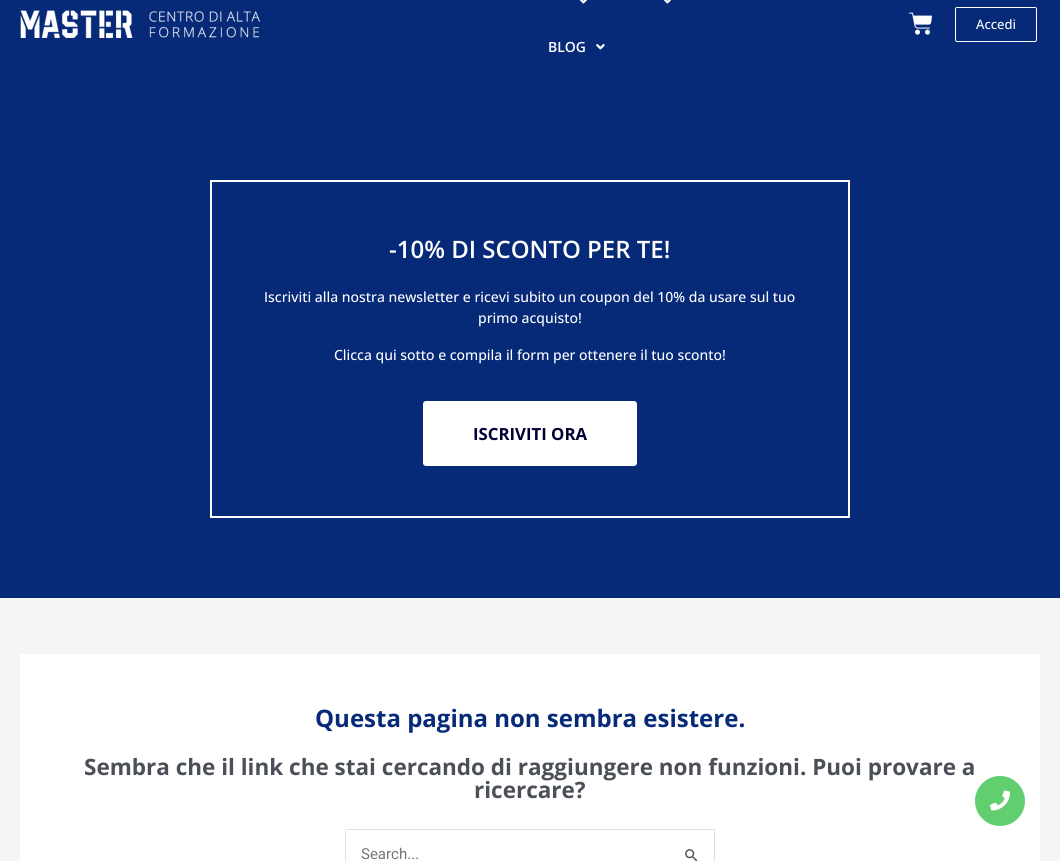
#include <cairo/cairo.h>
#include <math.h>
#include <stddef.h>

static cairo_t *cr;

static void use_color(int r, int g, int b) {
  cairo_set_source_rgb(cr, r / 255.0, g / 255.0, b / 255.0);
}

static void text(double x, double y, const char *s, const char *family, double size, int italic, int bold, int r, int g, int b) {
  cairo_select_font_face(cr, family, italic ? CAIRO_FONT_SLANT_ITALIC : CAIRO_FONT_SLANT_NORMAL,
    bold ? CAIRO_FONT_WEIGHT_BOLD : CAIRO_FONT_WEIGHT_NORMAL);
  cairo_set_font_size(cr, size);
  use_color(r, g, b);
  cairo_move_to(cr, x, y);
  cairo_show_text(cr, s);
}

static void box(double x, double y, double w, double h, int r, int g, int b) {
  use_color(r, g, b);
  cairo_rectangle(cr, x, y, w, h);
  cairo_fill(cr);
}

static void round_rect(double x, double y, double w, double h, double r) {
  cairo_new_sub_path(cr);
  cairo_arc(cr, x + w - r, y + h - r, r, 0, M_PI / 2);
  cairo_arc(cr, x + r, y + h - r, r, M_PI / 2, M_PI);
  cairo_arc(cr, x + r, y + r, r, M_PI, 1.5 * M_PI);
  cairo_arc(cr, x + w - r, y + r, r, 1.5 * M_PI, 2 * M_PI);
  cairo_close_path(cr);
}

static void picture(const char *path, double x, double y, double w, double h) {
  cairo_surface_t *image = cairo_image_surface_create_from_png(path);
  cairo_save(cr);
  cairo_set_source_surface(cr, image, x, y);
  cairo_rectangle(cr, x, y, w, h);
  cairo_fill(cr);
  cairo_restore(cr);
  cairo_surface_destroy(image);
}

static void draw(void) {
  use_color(245, 245, 245);
  cairo_paint(cr);
  box(0, 0, 1060, 598, 6, 42, 120);
  picture("img_01.png", 20, 10, 240, 28);
  picture("img_02.png", 909, 12, 23, 23);
  round_rect(955.5, 7.5, 81, 34, 1.5);
  use_color(255, 255, 255);
  cairo_set_line_width(cr, 1);
  cairo_stroke(cr);
  picture("img_03.png", 579, 0, 9, 4);
  picture("img_03.png", 663, 0, 9, 4);
  picture("img_04.png", 596, 44, 9, 6);
  cairo_rectangle(cr, 211, 181, 638, 336);
  cairo_set_line_width(cr, 2);
  cairo_stroke(cr);
  round_rect(423, 401, 214, 65, 3);
  cairo_fill(cr);
  box(20, 654, 1020, 207, 255, 255, 255);
  round_rect(345.5, 829.5, 369, 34, 1.5);
  use_color(221, 221, 221);
  cairo_set_line_width(cr, 1);
  cairo_stroke(cr);
  picture("img_05.png", 685, 849, 13, 12);
  use_color(97, 206, 112);
  cairo_arc(cr, 1000, 801, 25, 0, 2 * M_PI);
  cairo_fill(cr);
  picture("img_06.png", 990, 790, 20, 21);
  text(976, 29, "Accedi", "Open Sans Medium", 13, 0, 0, 255, 255, 255);
  text(548, 52, "BLOG", "Open Sans SemiBold", 14, 0, 0, 255, 255, 255);
  text(389, 258, "-10% DI SCONTO PER TE!", "Open Sans SemiBold", 24, 0, 0, 255, 255, 255);
  text(264, 302, "Iscriviti alla nostra newsletter e ricevi subito un coupon del 10% da usare sul tuo", "Open Sans Medium", 14, 0, 0, 255, 255, 255);
  text(478, 323, "primo acquisto!", "Open Sans Medium", 14, 0, 0, 255, 255, 255);
  text(334, 360, "Clicca qui sotto e compila il form per ottenere il tuo sconto!", "Open Sans Medium", 14, 0, 0, 255, 255, 255);
  text(473, 440, "ISCRIVITI ORA", "Open Sans", 16.75, 0, 1, 0, 0, 51);
  text(315, 727, "Questa pagina non sembra esistere.", "Open Sans", 24, 0, 1, 6, 42, 120);
  text(84, 775, "Sembra che il link che stai cercando di raggiungere non funzioni. Puoi provare a", "Open Sans", 22.5, 0, 1, 75, 79, 88);
  text(474, 798, "ricercare?", "Open Sans", 22.5, 0, 1, 75, 79, 88);
  text(361, 859, "Search...", "Roboto", 15, 0, 0, 117, 117, 117);
}

int main(void) {
  cairo_surface_t *surface = cairo_image_surface_create(CAIRO_FORMAT_RGB24, 1060, 861);
  cr = cairo_create(surface);
  cairo_font_options_t *options = cairo_font_options_create();
  cairo_font_options_set_hint_metrics(options, CAIRO_HINT_METRICS_OFF);
  cairo_font_options_set_hint_style(options, CAIRO_HINT_STYLE_NONE);
  cairo_set_font_options(cr, options);
  cairo_set_miter_limit(cr, 4);
  draw();
  cairo_surface_write_to_png(surface, "out.png");
  cairo_font_options_destroy(options);
  cairo_destroy(cr);
  cairo_surface_destroy(surface);
  return 0;
}
